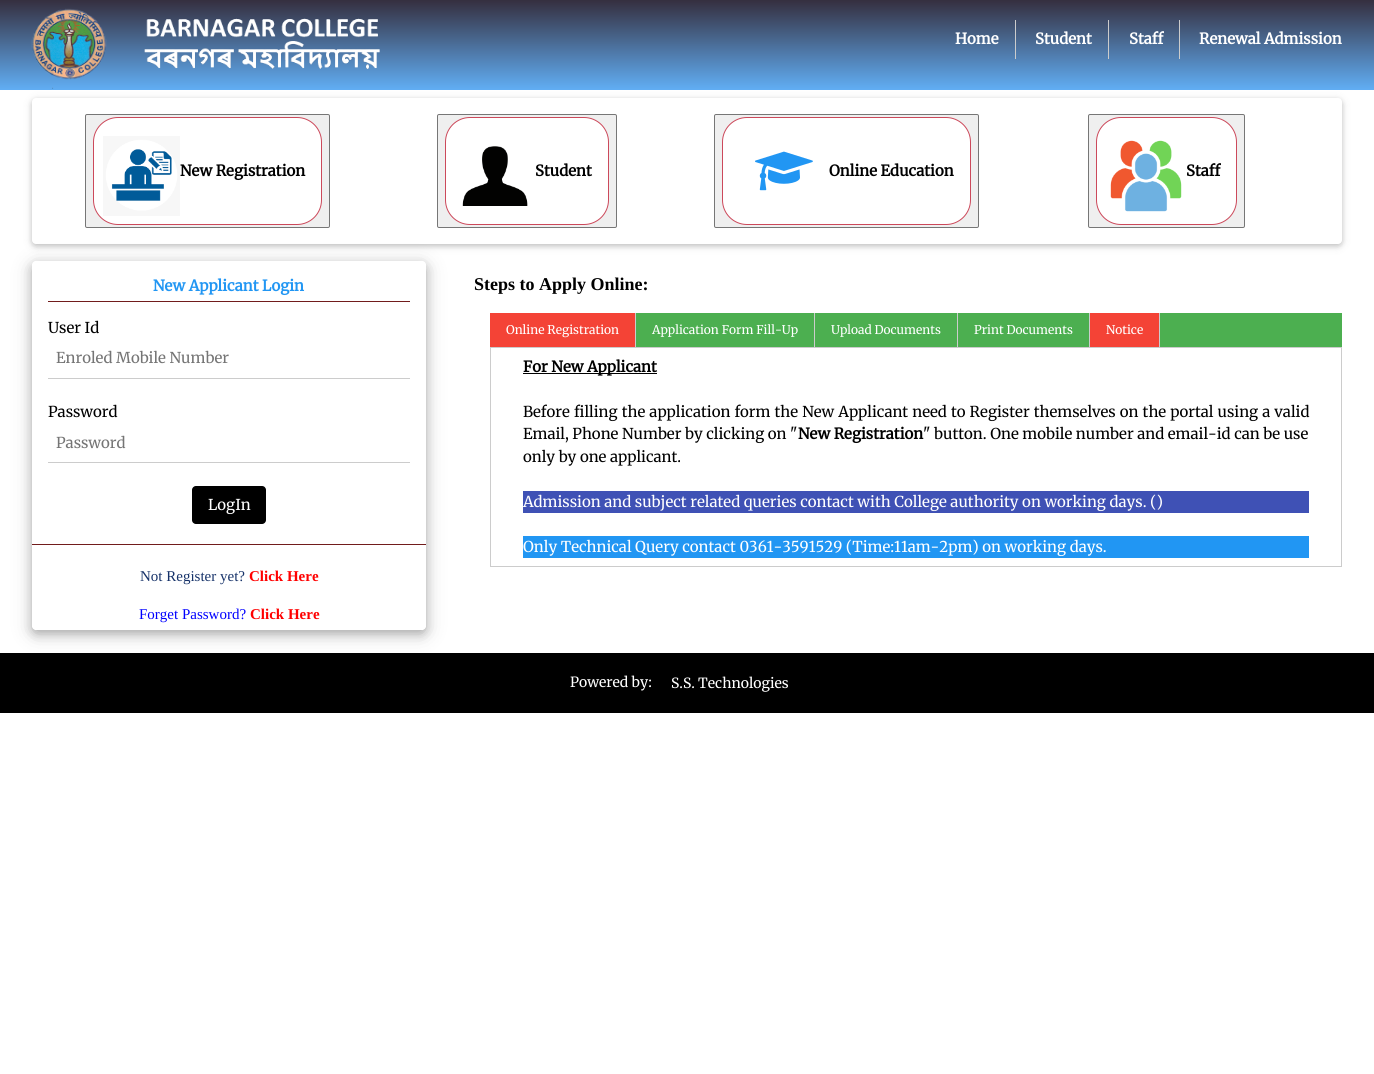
#include <cairo/cairo.h>
#include <math.h>
#include <stddef.h>

static cairo_t *cr;

static void use_color(int r, int g, int b) {
  cairo_set_source_rgb(cr, r / 255.0, g / 255.0, b / 255.0);
}

static void text(double x, double y, const char *s, const char *family, double size, int italic, int bold, int r, int g, int b) {
  cairo_select_font_face(cr, family, italic ? CAIRO_FONT_SLANT_ITALIC : CAIRO_FONT_SLANT_NORMAL,
    bold ? CAIRO_FONT_WEIGHT_BOLD : CAIRO_FONT_WEIGHT_NORMAL);
  cairo_set_font_size(cr, size);
  use_color(r, g, b);
  cairo_move_to(cr, x, y);
  cairo_show_text(cr, s);
}

static void spaced_text(double x, double y, const char *s, double letter, double word) {
  cairo_move_to(cr, x, y);
  while (*s) {
    char ch[5] = {0};
    int n = 0;
    do ch[n++] = *s++; while ((*s & 0xC0) == 0x80);
    cairo_show_text(cr, ch);
    cairo_rel_move_to(cr, letter + word * (*ch == ' '), 0);
  }
}

static void box(double x, double y, double w, double h, int r, int g, int b) {
  use_color(r, g, b);
  cairo_rectangle(cr, x, y, w, h);
  cairo_fill(cr);
}

static void round_rect(double x, double y, double w, double h, double r) {
  cairo_new_sub_path(cr);
  cairo_arc(cr, x + w - r, y + h - r, r, 0, M_PI / 2);
  cairo_arc(cr, x + r, y + h - r, r, M_PI / 2, M_PI);
  cairo_arc(cr, x + r, y + r, r, M_PI, 1.5 * M_PI);
  cairo_arc(cr, x + w - r, y + r, r, 1.5 * M_PI, 2 * M_PI);
  cairo_close_path(cr);
}

static void shadow(double x, double y, double w, double h, double r, double blur, double alpha) {
  cairo_push_group_with_content(cr, CAIRO_CONTENT_ALPHA);
  cairo_set_operator(cr, CAIRO_OPERATOR_SOURCE);
  for (int i = 15; i >= -15 && fmin(w, h) + blur * i / 3 > 0; i -= 2) {
    double e = blur * i / 6;
    cairo_set_source_rgba(cr, 0, 0, 0, alpha * erfc((i - 1) / 8.5) / 2);
    round_rect(x - e, y - e, w + 2 * e, h + 2 * e, fmax(0, fmin(r + e + blur * .6, fmin(w, h) / 2 + e)));
    cairo_fill(cr);
  }
  cairo_pattern_t *soft = cairo_pop_group(cr);
  cairo_mask(cr, soft);
  cairo_pattern_destroy(soft);
}

static void picture(const char *path, double x, double y, double w, double h) {
  cairo_surface_t *image = cairo_image_surface_create_from_png(path);
  cairo_save(cr);
  cairo_set_source_surface(cr, image, x, y);
  cairo_rectangle(cr, x, y, w, h);
  cairo_fill(cr);
  cairo_restore(cr);
  cairo_surface_destroy(image);
}

static void draw(void) {
  cairo_pattern_t *gradient;
  use_color(255, 255, 255);
  cairo_paint(cr);
  gradient = cairo_pattern_create_linear(687, 0, 687, 90);
  cairo_pattern_add_color_stop_rgba(gradient, 0, 0.208, 0.184, 0.247, 1);
  cairo_pattern_add_color_stop_rgba(gradient, 1, 0.38, 0.682, 0.957, 1);
  cairo_set_source(cr, gradient);
  cairo_pattern_destroy(gradient);
  cairo_rectangle(cr, 0, 0, 1374, 90);
  cairo_fill(cr);
  use_color(0, 0, 0);
  shadow(32, 100, 1310, 146, 4, 5, 0.12);
  picture("img_01.png", 31, 8, 76, 81);
  picture("img_02.png", 144, 18, 236, 51);
  box(1015, 20, 1, 39, 204, 204, 204);
  box(1108, 20, 1, 39, 204, 204, 204);
  box(1179, 20, 1, 39, 204, 204, 204);
  use_color(0, 0, 0);
  shadow(32, 100, 1310, 146, 4, 2.5, 0.16);
  use_color(255, 255, 255);
  round_rect(32, 98, 1310, 146, 4);
  cairo_fill(cr);
  use_color(239, 239, 239);
  round_rect(85.5, 114.5, 244, 113, 1.5);
  cairo_fill_preserve(cr);
  use_color(118, 118, 118);
  cairo_set_line_width(cr, 1);
  cairo_stroke(cr);
  use_color(255, 255, 255);
  round_rect(93.5, 117.5, 228, 107, 24.5);
  cairo_fill_preserve(cr);
  use_color(204, 73, 91);
  cairo_stroke(cr);
  picture("img_03.png", 103, 136, 77, 80);
  use_color(239, 239, 239);
  round_rect(437.5, 114.5, 179, 113, 1.5);
  cairo_fill_preserve(cr);
  use_color(118, 118, 118);
  cairo_stroke(cr);
  use_color(255, 255, 255);
  round_rect(445.5, 117.5, 163, 107, 24.5);
  cairo_fill_preserve(cr);
  use_color(204, 73, 91);
  cairo_stroke(cr);
  picture("img_04.png", 462, 146, 66, 60);
  use_color(239, 239, 239);
  round_rect(714.5, 114.5, 264, 113, 1.5);
  cairo_fill_preserve(cr);
  use_color(118, 118, 118);
  cairo_stroke(cr);
  use_color(255, 255, 255);
  round_rect(722.5, 117.5, 248, 107, 24.5);
  cairo_fill_preserve(cr);
  use_color(204, 73, 91);
  cairo_stroke(cr);
  picture("img_05.png", 755, 151, 58, 40);
  use_color(239, 239, 239);
  round_rect(1088.5, 114.5, 156, 113, 1.5);
  cairo_fill_preserve(cr);
  use_color(118, 118, 118);
  cairo_stroke(cr);
  use_color(255, 255, 255);
  round_rect(1096.5, 117.5, 140, 107, 24.5);
  cairo_fill_preserve(cr);
  use_color(204, 73, 91);
  cairo_stroke(cr);
  picture("img_06.png", 1110, 140, 72, 72);
  box(0, 653, 1374, 60, 0, 0, 0);
  cairo_save(cr);
  cairo_set_fill_rule(cr, CAIRO_FILL_RULE_EVEN_ODD);
  cairo_new_path(cr);
  cairo_move_to(cr, 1, 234);
  cairo_line_to(cr, 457, 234);
  cairo_line_to(cr, 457, 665);
  cairo_line_to(cr, 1, 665);
  cairo_close_path(cr);
  cairo_move_to(cr, 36, 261);
  cairo_line_to(cr, 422, 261);
  cairo_curve_to(cr, 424, 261, 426, 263, 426, 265);
  cairo_line_to(cr, 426, 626);
  cairo_curve_to(cr, 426, 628, 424, 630, 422, 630);
  cairo_line_to(cr, 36, 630);
  cairo_curve_to(cr, 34, 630, 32, 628, 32, 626);
  cairo_line_to(cr, 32, 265);
  cairo_curve_to(cr, 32, 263, 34, 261, 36, 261);
  cairo_close_path(cr);
  cairo_clip(cr);
  use_color(0, 0, 0);
  shadow(32, 265, 394, 369, 4, 10, 0.19);
  cairo_restore(cr);
  cairo_save(cr);
  cairo_set_fill_rule(cr, CAIRO_FILL_RULE_EVEN_ODD);
  cairo_new_path(cr);
  cairo_move_to(cr, 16, 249);
  cairo_line_to(cr, 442, 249);
  cairo_line_to(cr, 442, 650);
  cairo_line_to(cr, 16, 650);
  cairo_close_path(cr);
  cairo_move_to(cr, 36, 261);
  cairo_line_to(cr, 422, 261);
  cairo_curve_to(cr, 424, 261, 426, 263, 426, 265);
  cairo_line_to(cr, 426, 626);
  cairo_curve_to(cr, 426, 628, 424, 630, 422, 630);
  cairo_line_to(cr, 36, 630);
  cairo_curve_to(cr, 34, 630, 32, 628, 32, 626);
  cairo_line_to(cr, 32, 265);
  cairo_curve_to(cr, 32, 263, 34, 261, 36, 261);
  cairo_close_path(cr);
  cairo_clip(cr);
  use_color(0, 0, 0);
  shadow(32, 265, 394, 369, 4, 5, 0.2);
  cairo_restore(cr);
  box(48, 301, 362, 1, 113, 28, 28);
  box(48, 378, 362, 1, 204, 204, 204);
  box(48, 462, 362, 1, 204, 204, 204);
  use_color(0, 0, 0);
  round_rect(192, 486, 74, 38, 4);
  cairo_fill(cr);
  box(32, 544, 394, 1, 113, 28, 28);
  box(636, 313, 706, 34, 76, 175, 80);
  box(490, 313, 145, 34, 244, 67, 54);
  box(635, 313, 1, 34, 204, 204, 204);
  box(814, 313, 1, 34, 204, 204, 204);
  box(957, 313, 1, 34, 204, 204, 204);
  box(1089, 313, 1, 34, 204, 204, 204);
  box(1090, 313, 69, 34, 244, 67, 54);
  box(1159, 313, 1, 34, 204, 204, 204);
  cairo_rectangle(cr, 490.5, 347.5, 851, 219);
  cairo_stroke(cr);
  box(523, 373, 134, 1, 0, 0, 0);
  box(523, 491, 786, 22, 63, 81, 181);
  box(523, 536, 786, 22, 33, 150, 243);
  text(955, 44, "Home", "Merriweather", 15, 0, 1, 255, 255, 255);
  text(1035, 44, "Student", "Merriweather", 15, 0, 1, 255, 255, 255);
  text(1129, 44, "Staff", "Merriweather", 15, 0, 1, 255, 255, 255);
  text(1199, 44, "Renewal Admission", "Merriweather", 15, 0, 1, 255, 255, 255);
  text(180, 176, "New Registration", "Merriweather", 15, 0, 1, 0, 0, 0);
  text(535, 176, "Student", "Merriweather", 15, 0, 1, 0, 0, 0);
  text(829, 176, "Online Education", "Merriweather", 15, 0, 1, 0, 0, 0);
  text(1186, 176, "Staff", "Merriweather", 15, 0, 1, 0, 0, 0);
  text(153, 291, "New Applicant Login", "Merriweather", 15, 0, 1, 33, 150, 243);
  text(48, 333, "User Id", "Merriweather Light", 15, 0, 0, 0, 0, 0);
  text(56, 363, "Enroled Mobile Number", "Merriweather Light", 15, 0, 0, 117, 117, 117);
  text(48, 417, "Password", "Merriweather Light", 15, 0, 0, 0, 0, 0);
  text(56, 448, "Password", "Merriweather Light", 15, 0, 0, 117, 117, 117);
  text(208, 510, "LogIn", "Merriweather Light", 15, 0, 0, 255, 255, 255);
  text(140, 581, "Not Register yet?", "Liberation Serif", 15, 0, 0, 22, 50, 105);
  text(249, 581, "Click Here", "Liberation Serif", 15, 0, 1, 255, 0, 0);
  text(139, 619, "Forget Password?", "Liberation Serif", 15, 0, 0, 0, 0, 255);
  text(250, 619, "Click Here", "Liberation Serif", 15, 0, 1, 255, 0, 0);
  text(474, 290, "Steps to Apply Online:", "Liberation Serif", 18, 0, 1, 0, 0, 0);
  text(506, 334, "Online Registration", "Merriweather Light", 12, 0, 0, 255, 255, 255);
  text(652, 334, "Application Form Fill-Up", "Merriweather Light", 12, 0, 0, 255, 255, 255);
  text(831, 334, "Upload Documents", "Merriweather Light", 12, 0, 0, 255, 255, 255);
  text(974, 334, "Print Documents", "Merriweather Light", 12, 0, 0, 255, 255, 255);
  text(1106, 334, "Notice", "Merriweather Light", 12, 0, 0, 255, 255, 255);
  text(523, 372, "For New Applicant", "Merriweather", 15, 0, 1, 0, 0, 0);
  cairo_select_font_face(cr, "Merriweather Light", CAIRO_FONT_SLANT_NORMAL, CAIRO_FONT_WEIGHT_NORMAL);
  spaced_text(523, 417, "Before filling the application form the New Applicant need to Register themselves on the portal using a valid", 0, 0.5);
  text(523, 439, "Email, Phone Number by clicking on \"", "Merriweather Light", 15, 0, 0, 0, 0, 0);
  text(798, 439, "New Registration", "Merriweather", 15, 0, 1, 0, 0, 0);
  text(923, 439, "\" button. One mobile number and email-id can be use", "Merriweather Light", 15, 0, 0, 0, 0, 0);
  text(523, 462, "only by one applicant.", "Merriweather Light", 15, 0, 0, 0, 0, 0);
  text(523, 507, "Admission and subject related queries contact with College authority on working days. ()", "Merriweather Light", 15, 0, 0, 255, 255, 255);
  text(523, 552, "Only Technical Query contact 0361-3591529 (Time:11am-2pm) on working days.", "Merriweather Light", 15, 0, 0, 255, 255, 255);
  text(570, 687, "Powered by:", "Merriweather Light", 14, 0, 0, 255, 255, 255);
  text(671, 688, "S.S. Technologies", "Merriweather Light", 14, 0, 0, 255, 255, 255);
}

int main(void) {
  cairo_surface_t *surface = cairo_image_surface_create(CAIRO_FORMAT_RGB24, 1374, 1074);
  cr = cairo_create(surface);
  cairo_font_options_t *options = cairo_font_options_create();
  cairo_font_options_set_hint_metrics(options, CAIRO_HINT_METRICS_OFF);
  cairo_font_options_set_hint_style(options, CAIRO_HINT_STYLE_NONE);
  cairo_set_font_options(cr, options);
  cairo_set_miter_limit(cr, 4);
  draw();
  cairo_surface_write_to_png(surface, "out.png");
  cairo_font_options_destroy(options);
  cairo_destroy(cr);
  cairo_surface_destroy(surface);
  return 0;
}
